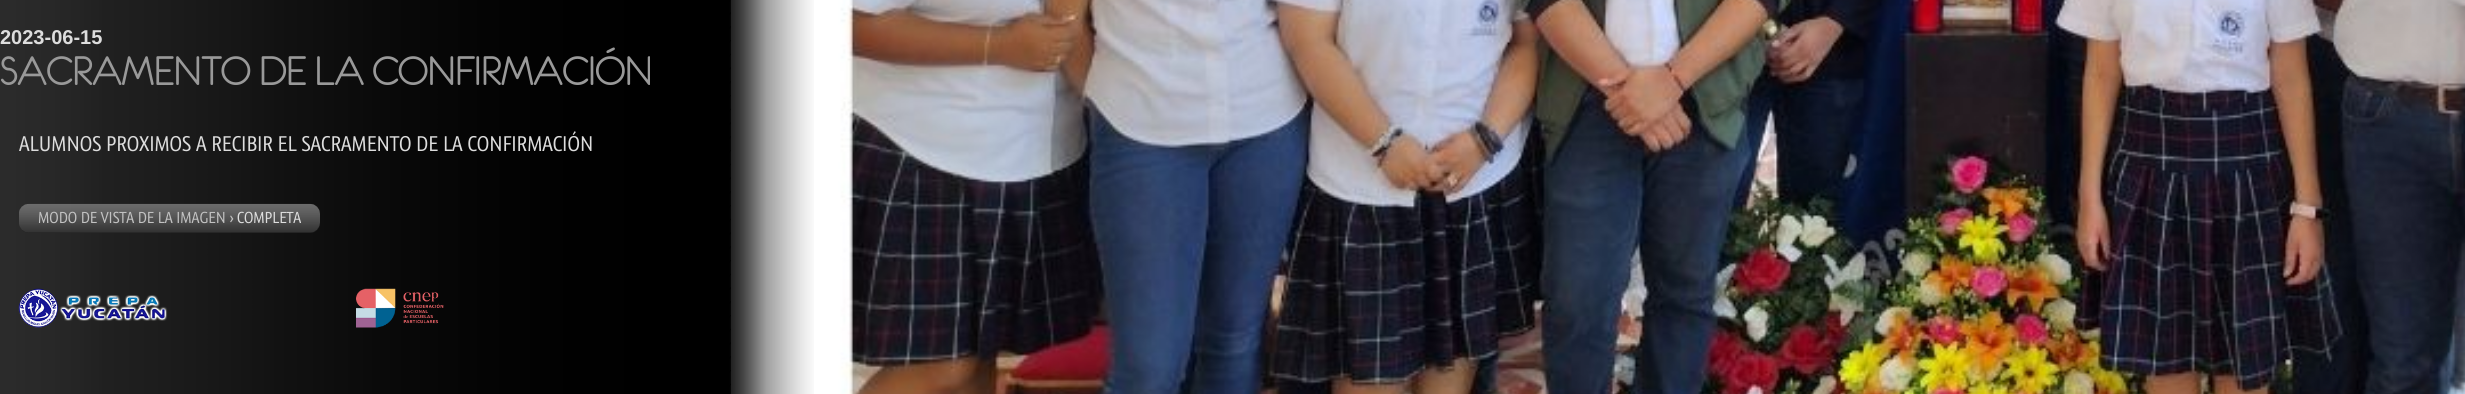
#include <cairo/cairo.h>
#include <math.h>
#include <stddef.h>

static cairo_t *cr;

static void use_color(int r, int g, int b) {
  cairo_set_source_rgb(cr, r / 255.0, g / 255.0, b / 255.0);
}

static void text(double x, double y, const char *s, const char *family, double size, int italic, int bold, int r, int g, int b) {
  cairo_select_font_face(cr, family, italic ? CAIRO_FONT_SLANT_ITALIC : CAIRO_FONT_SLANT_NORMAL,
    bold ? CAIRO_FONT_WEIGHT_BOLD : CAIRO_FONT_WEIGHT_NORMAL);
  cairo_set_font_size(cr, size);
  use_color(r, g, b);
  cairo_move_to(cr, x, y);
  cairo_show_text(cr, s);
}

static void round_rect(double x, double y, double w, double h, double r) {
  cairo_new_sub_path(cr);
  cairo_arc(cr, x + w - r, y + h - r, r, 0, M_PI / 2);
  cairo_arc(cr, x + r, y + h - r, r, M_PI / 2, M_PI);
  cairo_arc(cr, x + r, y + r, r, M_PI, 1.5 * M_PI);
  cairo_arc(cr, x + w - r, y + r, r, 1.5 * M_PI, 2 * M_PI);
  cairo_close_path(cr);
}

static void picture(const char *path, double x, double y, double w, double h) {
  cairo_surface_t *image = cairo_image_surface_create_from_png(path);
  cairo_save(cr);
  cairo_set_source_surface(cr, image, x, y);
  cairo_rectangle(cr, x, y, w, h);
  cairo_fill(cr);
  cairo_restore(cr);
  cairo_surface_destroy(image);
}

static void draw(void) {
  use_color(255, 255, 255);
  cairo_paint(cr);
  picture("img_01.png", 729, 0, 2, 394);
  picture("img_05.png", 731, 0, 1734, 394);
  picture("img_02.png", 0, 0, 814, 394);
  cairo_set_source_rgba(cr, 0.149, 0.149, 0.149, 0.8);
  round_rect(19, 204, 301, 29, 10);
  cairo_fill(cr);
  picture("img_03.png", 19, 203, 301, 30);
  picture("img_04.png", 18, 288, 426, 40);
  text(0, 44, "2023-06-15", "Liberation Sans", 20, 0, 1, 221, 221, 221);
  text(0, 85, "SACRAMENTO DE LA CONFIRMACIÓN", "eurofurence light", 45, 0, 1, 153, 153, 153);
  text(19, 151, "ALUMNOS PROXIMOS A RECIBIR EL SACRAMENTO DE LA CONFIRMACIÓN", "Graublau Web", 20, 0, 0, 221, 221, 221);
  text(38, 223, "MODO DE VISTA DE LA IMAGEN ›", "Graublau Web", 15, 0, 0, 194, 194, 194);
  text(237, 223, "COMPLETA", "Graublau Web", 15, 0, 0, 221, 221, 221);
}

int main(void) {
  cairo_surface_t *surface = cairo_image_surface_create(CAIRO_FORMAT_RGB24, 2465, 394);
  cr = cairo_create(surface);
  cairo_font_options_t *options = cairo_font_options_create();
  cairo_font_options_set_hint_metrics(options, CAIRO_HINT_METRICS_OFF);
  cairo_font_options_set_hint_style(options, CAIRO_HINT_STYLE_NONE);
  cairo_set_font_options(cr, options);
  cairo_set_miter_limit(cr, 4);
  draw();
  cairo_surface_write_to_png(surface, "out.png");
  cairo_font_options_destroy(options);
  cairo_destroy(cr);
  cairo_surface_destroy(surface);
  return 0;
}
